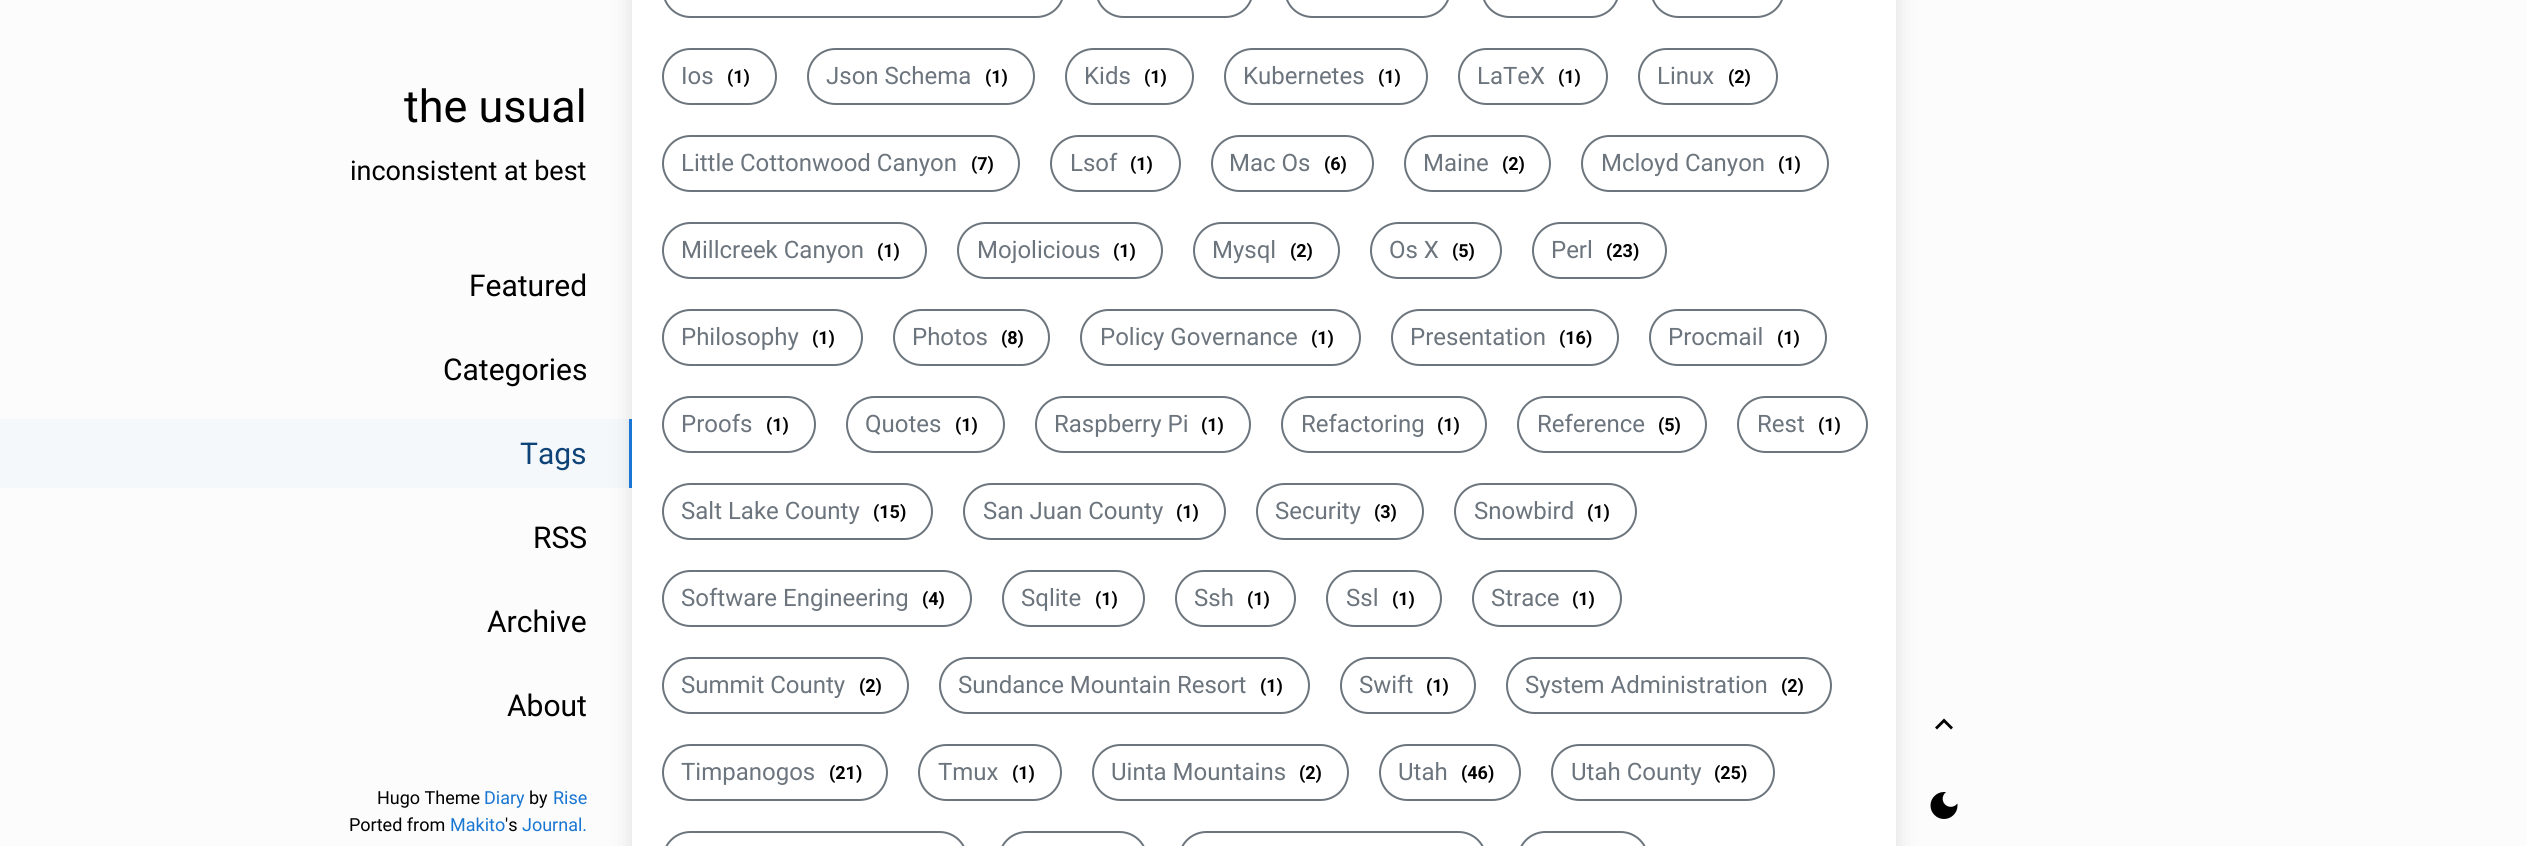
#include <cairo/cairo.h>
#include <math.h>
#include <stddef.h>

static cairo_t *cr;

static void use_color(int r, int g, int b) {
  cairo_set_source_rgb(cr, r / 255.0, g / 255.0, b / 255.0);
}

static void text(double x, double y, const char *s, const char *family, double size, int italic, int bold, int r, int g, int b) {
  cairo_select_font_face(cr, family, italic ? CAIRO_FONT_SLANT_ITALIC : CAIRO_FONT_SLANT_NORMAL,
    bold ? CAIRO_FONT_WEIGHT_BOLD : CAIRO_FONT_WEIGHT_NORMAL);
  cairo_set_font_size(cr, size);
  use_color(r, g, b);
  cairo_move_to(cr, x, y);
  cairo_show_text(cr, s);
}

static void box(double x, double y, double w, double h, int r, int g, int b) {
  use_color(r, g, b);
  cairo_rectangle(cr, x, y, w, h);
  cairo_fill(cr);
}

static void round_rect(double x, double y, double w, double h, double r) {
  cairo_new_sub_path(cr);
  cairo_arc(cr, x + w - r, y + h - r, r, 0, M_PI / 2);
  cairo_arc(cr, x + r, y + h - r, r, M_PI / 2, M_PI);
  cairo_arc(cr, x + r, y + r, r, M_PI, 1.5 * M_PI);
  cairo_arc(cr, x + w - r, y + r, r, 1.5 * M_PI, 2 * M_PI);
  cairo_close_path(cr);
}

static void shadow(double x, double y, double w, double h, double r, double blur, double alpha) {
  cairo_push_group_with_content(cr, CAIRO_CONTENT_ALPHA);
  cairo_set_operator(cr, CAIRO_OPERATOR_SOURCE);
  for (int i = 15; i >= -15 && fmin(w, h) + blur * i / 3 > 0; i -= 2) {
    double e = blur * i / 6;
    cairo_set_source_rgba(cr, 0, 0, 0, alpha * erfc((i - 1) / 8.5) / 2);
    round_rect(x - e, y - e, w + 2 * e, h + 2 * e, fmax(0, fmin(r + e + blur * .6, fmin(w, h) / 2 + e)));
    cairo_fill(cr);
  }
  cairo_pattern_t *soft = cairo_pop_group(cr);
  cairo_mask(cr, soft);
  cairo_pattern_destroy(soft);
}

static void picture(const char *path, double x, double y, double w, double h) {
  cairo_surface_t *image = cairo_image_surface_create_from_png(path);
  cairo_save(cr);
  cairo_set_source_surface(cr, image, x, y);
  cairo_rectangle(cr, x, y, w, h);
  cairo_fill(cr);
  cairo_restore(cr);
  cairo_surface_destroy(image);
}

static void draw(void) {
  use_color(252, 252, 252);
  cairo_paint(cr);
  use_color(0, 0, 0);
  shadow(632, -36, 1264, 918, 0, 12, 0.12);
  cairo_set_source_rgba(cr, 0.098, 0.463, 0.824, 0.03);
  cairo_rectangle(cr, 0, 419, 629, 69);
  cairo_fill(cr);
  box(629, 419, 3, 69, 25, 118, 210);
  box(632, 0, 1264, 846, 255, 255, 255);
  round_rect(663, -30, 401, 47, 27.5);
  use_color(108, 117, 125);
  cairo_stroke(cr);
  round_rect(1096, -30, 157, 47, 27.5);
  cairo_stroke(cr);
  round_rect(1285, -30, 165, 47, 27.5);
  cairo_stroke(cr);
  round_rect(1482, -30, 137, 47, 27.5);
  cairo_stroke(cr);
  round_rect(1651, -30, 133, 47, 27.5);
  cairo_stroke(cr);
  round_rect(663, 49, 113, 55, 27.5);
  cairo_stroke(cr);
  round_rect(808, 49, 226, 55, 27.5);
  cairo_stroke(cr);
  round_rect(1066, 49, 127, 55, 27.5);
  cairo_stroke(cr);
  round_rect(1225, 49, 202, 55, 27.5);
  cairo_stroke(cr);
  round_rect(1459, 49, 148, 55, 27.5);
  cairo_stroke(cr);
  round_rect(1639, 49, 138, 55, 27.5);
  cairo_stroke(cr);
  round_rect(663, 136, 356, 55, 27.5);
  cairo_stroke(cr);
  round_rect(1051, 136, 129, 55, 27.5);
  cairo_stroke(cr);
  round_rect(1212, 136, 161, 55, 27.5);
  cairo_stroke(cr);
  round_rect(1405, 136, 145, 55, 27.5);
  cairo_stroke(cr);
  round_rect(1582, 136, 246, 55, 27.5);
  cairo_stroke(cr);
  round_rect(663, 223, 263, 55, 27.5);
  cairo_stroke(cr);
  round_rect(958, 223, 204, 55, 27.5);
  cairo_stroke(cr);
  round_rect(1194, 223, 145, 55, 27.5);
  cairo_stroke(cr);
  round_rect(1371, 223, 130, 55, 27.5);
  cairo_stroke(cr);
  round_rect(1533, 223, 133, 55, 27.5);
  cairo_stroke(cr);
  round_rect(663, 310, 199, 55, 27.5);
  cairo_stroke(cr);
  round_rect(894, 310, 155, 55, 27.5);
  cairo_stroke(cr);
  round_rect(1081, 310, 279, 55, 27.5);
  cairo_stroke(cr);
  round_rect(1392, 310, 226, 55, 27.5);
  cairo_stroke(cr);
  round_rect(1650, 310, 176, 55, 27.5);
  cairo_stroke(cr);
  round_rect(663, 397, 152, 55, 27.5);
  cairo_stroke(cr);
  round_rect(847, 397, 157, 55, 27.5);
  cairo_stroke(cr);
  round_rect(1036, 397, 214, 55, 27.5);
  cairo_stroke(cr);
  round_rect(1282, 397, 204, 55, 27.5);
  cairo_stroke(cr);
  round_rect(1518, 397, 188, 55, 27.5);
  cairo_stroke(cr);
  round_rect(1738, 397, 129, 55, 27.5);
  cairo_stroke(cr);
  round_rect(663, 484, 269, 55, 27.5);
  cairo_stroke(cr);
  round_rect(964, 484, 261, 55, 27.5);
  cairo_stroke(cr);
  round_rect(1257, 484, 166, 55, 27.5);
  cairo_stroke(cr);
  round_rect(1455, 484, 181, 55, 27.5);
  cairo_stroke(cr);
  round_rect(663, 571, 308, 55, 27.5);
  cairo_stroke(cr);
  round_rect(1003, 571, 141, 55, 27.5);
  cairo_stroke(cr);
  round_rect(1176, 571, 119, 55, 27.5);
  cairo_stroke(cr);
  round_rect(1327, 571, 114, 55, 27.5);
  cairo_stroke(cr);
  round_rect(1473, 571, 148, 55, 27.5);
  cairo_stroke(cr);
  round_rect(663, 658, 245, 55, 27.5);
  cairo_stroke(cr);
  round_rect(940, 658, 369, 55, 27.5);
  cairo_stroke(cr);
  round_rect(1341, 658, 134, 55, 27.5);
  cairo_stroke(cr);
  round_rect(1507, 658, 324, 55, 27.5);
  cairo_stroke(cr);
  round_rect(663, 745, 224, 55, 27.5);
  cairo_stroke(cr);
  round_rect(919, 745, 142, 55, 27.5);
  cairo_stroke(cr);
  round_rect(1093, 745, 255, 55, 27.5);
  cairo_stroke(cr);
  round_rect(1380, 745, 140, 55, 27.5);
  cairo_stroke(cr);
  round_rect(1552, 745, 222, 55, 27.5);
  cairo_stroke(cr);
  round_rect(663, 832, 304, 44, 27.5);
  cairo_stroke(cr);
  round_rect(999, 832, 148, 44, 27.5);
  cairo_stroke(cr);
  round_rect(1179, 832, 307, 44, 27.5);
  cairo_stroke(cr);
  round_rect(1518, 832, 130, 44, 27.5);
  cairo_stroke(cr);
  use_color(0, 0, 0);
  cairo_new_path(cr);
  cairo_move_to(cr, 1937, 729.5);
  cairo_line_to(cr, 1935, 727.5);
  cairo_line_to(cr, 1944, 718.5);
  cairo_line_to(cr, 1953, 727.5);
  cairo_line_to(cr, 1951, 729.5);
  cairo_line_to(cr, 1944, 722.5);
  cairo_close_path(cr);
  cairo_fill(cr);
  picture("img_01.png", 1930, 792, 28, 27);
  text(404, 122, "the usual", "Roboto", 45, 0, 0, 0, 0, 0);
  text(350, 180, "inconsistent at best", "Roboto", 27, 0, 0, 0, 0, 0);
  text(469, 296, "Featured", "Roboto", 30, 0, 0, 0, 0, 0);
  text(443, 380, "Categories", "Roboto", 30, 0, 0, 0, 0, 0);
  text(520, 464, "Tags", "Roboto", 30, 0, 0, 14, 67, 119);
  text(533, 548, "RSS", "Roboto", 30, 0, 0, 0, 0, 0);
  text(487, 632, "Archive", "Roboto", 30, 0, 0, 0, 0, 0);
  text(507, 716, "About", "Roboto", 30, 0, 0, 0, 0, 0);
  text(377, 804, "Hugo Theme", "Roboto", 18, 0, 0, 0, 0, 0);
  text(484, 804, "Diary", "Roboto", 18, 0, 0, 25, 118, 210);
  text(529, 804, "by", "Roboto", 18, 0, 0, 0, 0, 0);
  text(553, 804, "Rise", "Roboto", 18, 0, 0, 25, 118, 210);
  text(349, 831, "Ported from", "Roboto", 18, 0, 0, 0, 0, 0);
  text(450, 831, "Makito", "Roboto", 18, 0, 0, 25, 118, 210);
  text(505, 831, "'s", "Roboto", 18, 0, 0, 0, 0, 0);
  text(522, 831, "Journal.", "Roboto", 18, 0, 0, 25, 118, 210);
  text(681, 84, "Ios", "Roboto", 24, 0, 0, 108, 117, 125);
  text(727, 83, "(1)", "Roboto", 18, 0, 1, 0, 0, 0);
  text(826, 84, "Json Schema", "Roboto", 24, 0, 0, 108, 117, 125);
  text(985, 83, "(1)", "Roboto", 18, 0, 1, 0, 0, 0);
  text(1084, 84, "Kids", "Roboto", 24, 0, 0, 108, 117, 125);
  text(1144, 83, "(1)", "Roboto", 18, 0, 1, 0, 0, 0);
  text(1243, 84, "Kubernetes", "Roboto", 24, 0, 0, 108, 117, 125);
  text(1378, 83, "(1)", "Roboto", 18, 0, 1, 0, 0, 0);
  text(1477, 84, "LaTeX", "Roboto", 24, 0, 0, 108, 117, 125);
  text(1558, 83, "(1)", "Roboto", 18, 0, 1, 0, 0, 0);
  text(1657, 84, "Linux", "Roboto", 24, 0, 0, 108, 117, 125);
  text(1728, 83, "(2)", "Roboto", 18, 0, 1, 0, 0, 0);
  text(681, 171, "Little Cottonwood Canyon", "Roboto", 24, 0, 0, 108, 117, 125);
  text(971, 170, "(7)", "Roboto", 18, 0, 1, 0, 0, 0);
  text(1070, 171, "Lsof", "Roboto", 24, 0, 0, 108, 117, 125);
  text(1130, 170, "(1)", "Roboto", 18, 0, 1, 0, 0, 0);
  text(1229, 171, "Mac Os", "Roboto", 24, 0, 0, 108, 117, 125);
  text(1324, 170, "(6)", "Roboto", 18, 0, 1, 0, 0, 0);
  text(1423, 171, "Maine", "Roboto", 24, 0, 0, 108, 117, 125);
  text(1502, 170, "(2)", "Roboto", 18, 0, 1, 0, 0, 0);
  text(1601, 171, "Mcloyd Canyon", "Roboto", 24, 0, 0, 108, 117, 125);
  text(1778, 170, "(1)", "Roboto", 18, 0, 1, 0, 0, 0);
  text(681, 258, "Millcreek Canyon", "Roboto", 24, 0, 0, 108, 117, 125);
  text(877, 257, "(1)", "Roboto", 18, 0, 1, 0, 0, 0);
  text(977, 258, "Mojolicious", "Roboto", 24, 0, 0, 108, 117, 125);
  text(1113, 257, "(1)", "Roboto", 18, 0, 1, 0, 0, 0);
  text(1212, 258, "Mysql", "Roboto", 24, 0, 0, 108, 117, 125);
  text(1290, 257, "(2)", "Roboto", 18, 0, 1, 0, 0, 0);
  text(1389, 258, "Os X", "Roboto", 24, 0, 0, 108, 117, 125);
  text(1452, 257, "(5)", "Roboto", 18, 0, 1, 0, 0, 0);
  text(1551, 258, "Perl", "Roboto", 24, 0, 0, 108, 117, 125);
  text(1606, 257, "(23)", "Roboto", 18, 0, 1, 0, 0, 0);
  text(681, 345, "Philosophy", "Roboto", 24, 0, 0, 108, 117, 125);
  text(812, 344, "(1)", "Roboto", 18, 0, 1, 0, 0, 0);
  text(912, 345, "Photos", "Roboto", 24, 0, 0, 108, 117, 125);
  text(1001, 344, "(8)", "Roboto", 18, 0, 1, 0, 0, 0);
  text(1100, 345, "Policy Governance", "Roboto", 24, 0, 0, 108, 117, 125);
  text(1311, 344, "(1)", "Roboto", 18, 0, 1, 0, 0, 0);
  text(1410, 345, "Presentation", "Roboto", 24, 0, 0, 108, 117, 125);
  text(1559, 344, "(16)", "Roboto", 18, 0, 1, 0, 0, 0);
  text(1668, 345, "Procmail", "Roboto", 24, 0, 0, 108, 117, 125);
  text(1777, 344, "(1)", "Roboto", 18, 0, 1, 0, 0, 0);
  text(681, 432, "Proofs", "Roboto", 24, 0, 0, 108, 117, 125);
  text(766, 431, "(1)", "Roboto", 18, 0, 1, 0, 0, 0);
  text(865, 432, "Quotes", "Roboto", 24, 0, 0, 108, 117, 125);
  text(955, 431, "(1)", "Roboto", 18, 0, 1, 0, 0, 0);
  text(1054, 432, "Raspberry Pi", "Roboto", 24, 0, 0, 108, 117, 125);
  text(1201, 431, "(1)", "Roboto", 18, 0, 1, 0, 0, 0);
  text(1301, 432, "Refactoring", "Roboto", 24, 0, 0, 108, 117, 125);
  text(1437, 431, "(1)", "Roboto", 18, 0, 1, 0, 0, 0);
  text(1537, 432, "Reference", "Roboto", 24, 0, 0, 108, 117, 125);
  text(1658, 431, "(5)", "Roboto", 18, 0, 1, 0, 0, 0);
  text(1757, 432, "Rest", "Roboto", 24, 0, 0, 108, 117, 125);
  text(1818, 431, "(1)", "Roboto", 18, 0, 1, 0, 0, 0);
  text(681, 519, "Salt Lake County", "Roboto", 24, 0, 0, 108, 117, 125);
  text(873, 518, "(15)", "Roboto", 18, 0, 1, 0, 0, 0);
  text(983, 519, "San Juan County", "Roboto", 24, 0, 0, 108, 117, 125);
  text(1176, 518, "(1)", "Roboto", 18, 0, 1, 0, 0, 0);
  text(1275, 519, "Security", "Roboto", 24, 0, 0, 108, 117, 125);
  text(1374, 518, "(3)", "Roboto", 18, 0, 1, 0, 0, 0);
  text(1474, 519, "Snowbird", "Roboto", 24, 0, 0, 108, 117, 125);
  text(1587, 518, "(1)", "Roboto", 18, 0, 1, 0, 0, 0);
  text(681, 606, "Software Engineering", "Roboto", 24, 0, 0, 108, 117, 125);
  text(922, 605, "(4)", "Roboto", 18, 0, 1, 0, 0, 0);
  text(1021, 606, "Sqlite", "Roboto", 24, 0, 0, 108, 117, 125);
  text(1095, 605, "(1)", "Roboto", 18, 0, 1, 0, 0, 0);
  text(1194, 606, "Ssh", "Roboto", 24, 0, 0, 108, 117, 125);
  text(1247, 605, "(1)", "Roboto", 18, 0, 1, 0, 0, 0);
  text(1346, 606, "Ssl", "Roboto", 24, 0, 0, 108, 117, 125);
  text(1392, 605, "(1)", "Roboto", 18, 0, 1, 0, 0, 0);
  text(1491, 606, "Strace", "Roboto", 24, 0, 0, 108, 117, 125);
  text(1572, 605, "(1)", "Roboto", 18, 0, 1, 0, 0, 0);
  text(681, 693, "Summit County", "Roboto", 24, 0, 0, 108, 117, 125);
  text(859, 692, "(2)", "Roboto", 18, 0, 1, 0, 0, 0);
  text(958, 693, "Sundance Mountain Resort", "Roboto", 24, 0, 0, 108, 117, 125);
  text(1260, 692, "(1)", "Roboto", 18, 0, 1, 0, 0, 0);
  text(1359, 693, "Swift", "Roboto", 24, 0, 0, 108, 117, 125);
  text(1426, 692, "(1)", "Roboto", 18, 0, 1, 0, 0, 0);
  text(1525, 693, "System Administration", "Roboto", 24, 0, 0, 108, 117, 125);
  text(1781, 692, "(2)", "Roboto", 18, 0, 1, 0, 0, 0);
  text(681, 780, "Timpanogos", "Roboto", 24, 0, 0, 108, 117, 125);
  text(829, 779, "(21)", "Roboto", 18, 0, 1, 0, 0, 0);
  text(938, 780, "Tmux", "Roboto", 24, 0, 0, 108, 117, 125);
  text(1012, 779, "(1)", "Roboto", 18, 0, 1, 0, 0, 0);
  text(1111, 780, "Uinta Mountains", "Roboto", 24, 0, 0, 108, 117, 125);
  text(1299, 779, "(2)", "Roboto", 18, 0, 1, 0, 0, 0);
  text(1398, 780, "Utah", "Roboto", 24, 0, 0, 108, 117, 125);
  text(1461, 779, "(46)", "Roboto", 18, 0, 1, 0, 0, 0);
  text(1571, 780, "Utah County", "Roboto", 24, 0, 0, 108, 117, 125);
  text(1714, 779, "(25)", "Roboto", 18, 0, 1, 0, 0, 0);
}

int main(void) {
  cairo_surface_t *surface = cairo_image_surface_create(CAIRO_FORMAT_RGB24, 2527, 846);
  cr = cairo_create(surface);
  cairo_font_options_t *options = cairo_font_options_create();
  cairo_font_options_set_hint_metrics(options, CAIRO_HINT_METRICS_OFF);
  cairo_font_options_set_hint_style(options, CAIRO_HINT_STYLE_NONE);
  cairo_set_font_options(cr, options);
  cairo_set_miter_limit(cr, 4);
  draw();
  cairo_surface_write_to_png(surface, "out.png");
  cairo_font_options_destroy(options);
  cairo_destroy(cr);
  cairo_surface_destroy(surface);
  return 0;
}
